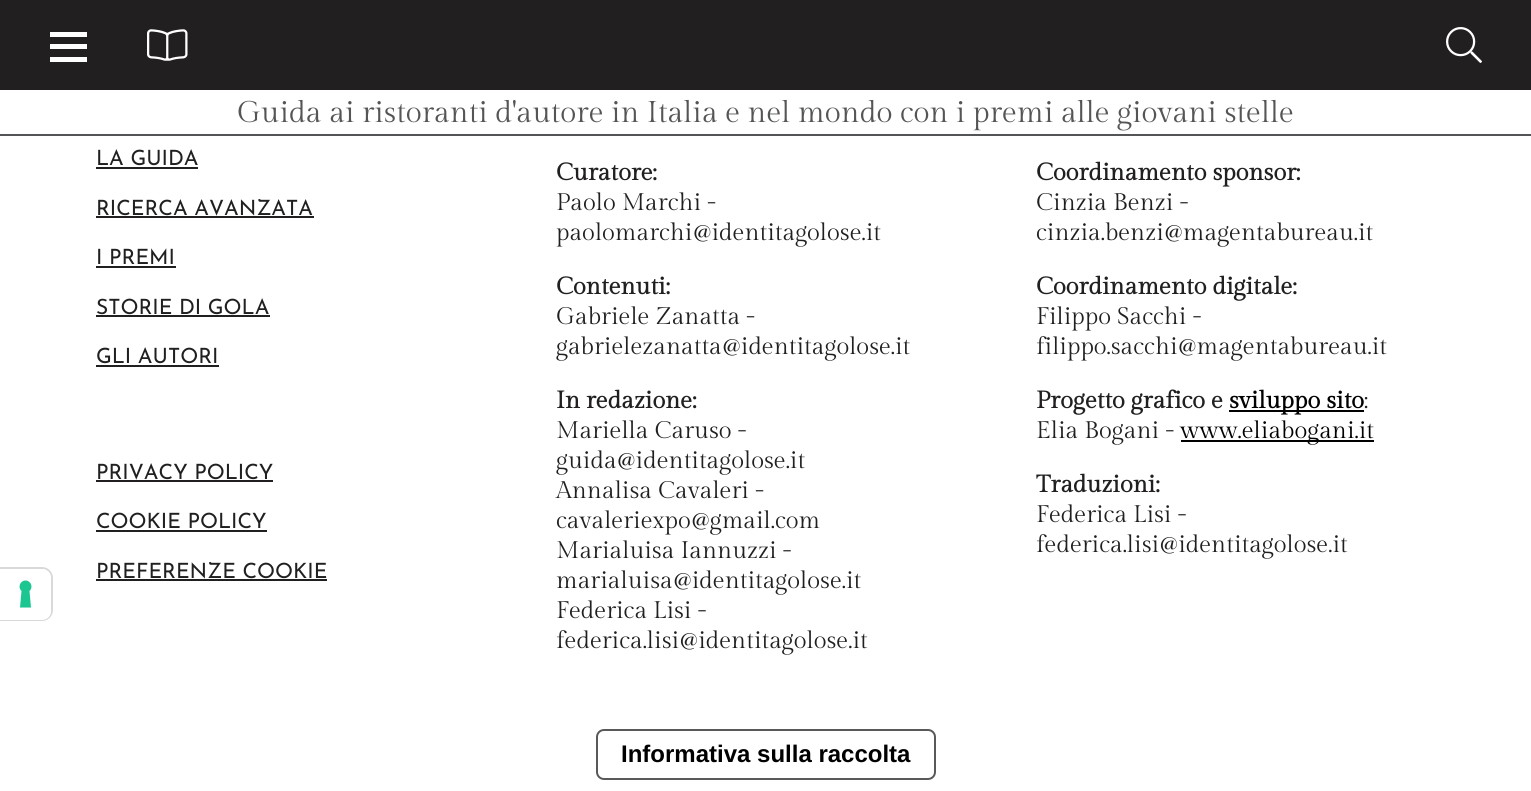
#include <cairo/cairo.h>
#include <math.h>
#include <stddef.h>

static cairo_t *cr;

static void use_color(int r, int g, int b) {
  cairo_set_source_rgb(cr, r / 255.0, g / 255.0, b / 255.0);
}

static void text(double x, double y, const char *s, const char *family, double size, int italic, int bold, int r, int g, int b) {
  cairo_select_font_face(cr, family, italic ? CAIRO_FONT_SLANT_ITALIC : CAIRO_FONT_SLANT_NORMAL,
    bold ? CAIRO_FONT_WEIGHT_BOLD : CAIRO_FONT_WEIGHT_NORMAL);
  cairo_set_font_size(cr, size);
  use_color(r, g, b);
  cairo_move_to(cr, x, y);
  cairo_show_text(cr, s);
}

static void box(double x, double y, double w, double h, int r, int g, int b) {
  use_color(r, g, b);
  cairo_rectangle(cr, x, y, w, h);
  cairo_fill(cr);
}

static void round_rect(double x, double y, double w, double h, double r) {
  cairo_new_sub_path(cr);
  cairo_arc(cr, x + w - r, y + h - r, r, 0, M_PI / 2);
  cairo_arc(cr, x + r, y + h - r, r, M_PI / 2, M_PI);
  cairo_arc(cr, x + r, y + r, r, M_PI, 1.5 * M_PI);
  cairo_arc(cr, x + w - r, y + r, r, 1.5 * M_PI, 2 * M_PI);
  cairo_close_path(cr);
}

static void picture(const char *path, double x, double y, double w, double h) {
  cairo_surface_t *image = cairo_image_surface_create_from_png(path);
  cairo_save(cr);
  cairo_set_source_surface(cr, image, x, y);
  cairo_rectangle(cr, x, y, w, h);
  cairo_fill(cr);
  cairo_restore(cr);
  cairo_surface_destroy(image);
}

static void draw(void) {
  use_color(255, 255, 255);
  cairo_paint(cr);
  box(0, 0, 1531, 90, 34, 31, 32);
  box(50, 32, 37, 5, 255, 255, 255);
  box(50, 44, 37, 5, 255, 255, 255);
  box(50, 57, 37, 5, 255, 255, 255);
  picture("img_01.png", 147, 29, 41, 32);
  picture("img_02.png", 1446, 27, 36, 36);
  box(0, 134, 1531, 2, 84, 85, 87);
  cairo_new_path(cr);
  cairo_move_to(cr, 0, 568);
  cairo_line_to(cr, 42, 568);
  cairo_curve_to(cr, 47.5, 568, 52, 572.5, 52, 578);
  cairo_line_to(cr, 52, 610);
  cairo_curve_to(cr, 52, 615.5, 47.5, 620, 42, 620);
  cairo_line_to(cr, 0, 620);
  cairo_close_path(cr);
  use_color(217, 217, 217);
  cairo_stroke(cr);
  use_color(255, 255, 255);
  cairo_new_path(cr);
  cairo_move_to(cr, 0, 569);
  cairo_line_to(cr, 42, 569);
  cairo_curve_to(cr, 47, 569, 51, 573, 51, 578);
  cairo_line_to(cr, 51, 611);
  cairo_curve_to(cr, 51, 616, 47, 620, 42, 620);
  cairo_line_to(cr, 0, 620);
  cairo_close_path(cr);
  cairo_fill(cr);
  use_color(28, 198, 145);
  cairo_set_fill_rule(cr, CAIRO_FILL_RULE_EVEN_ODD);
  cairo_new_path(cr);
  cairo_move_to(cr, 25.5, 580.5);
  cairo_curve_to(cr, 31, 580.5, 33.5, 587.5, 29.5, 591);
  cairo_line_to(cr, 31, 607.5);
  cairo_line_to(cr, 20, 607.5);
  cairo_line_to(cr, 21.5, 591);
  cairo_curve_to(cr, 17.5, 587.5, 20, 580.5, 25.5, 580.5);
  cairo_close_path(cr);
  cairo_fill(cr);
  box(96, 167, 102, 2, 34, 31, 32);
  box(96, 216, 218, 2, 34, 31, 32);
  box(96, 266, 80, 2, 34, 31, 32);
  box(96, 315, 174, 2, 34, 31, 32);
  box(96, 365, 123, 2, 34, 31, 32);
  box(96, 480, 177, 2, 34, 31, 32);
  box(96, 530, 171, 2, 34, 31, 32);
  box(96, 579, 231, 2, 34, 31, 32);
  box(1229, 410, 135, 2, 0, 0, 0);
  box(1181, 440, 193, 2, 0, 0, 0);
  round_rect(597, 730, 338, 49, 7);
  use_color(89, 89, 89);
  cairo_stroke(cr);
  text(237, 122, "Guida ai ristoranti d'autore in Italia e nel mondo con i premi alle giovani stelle", "Gilda Display", 30, 0, 0, 84, 85, 87);
  text(96, 165, "LA GUIDA", "Josefin Sans", 21, 0, 0, 34, 31, 32);
  text(96, 215, "RICERCA AVANZATA", "Josefin Sans", 21, 0, 0, 34, 31, 32);
  text(96, 264, "I PREMI", "Josefin Sans", 21, 0, 0, 34, 31, 32);
  text(96, 314, "STORIE DI GOLA", "Josefin Sans", 21, 0, 0, 34, 31, 32);
  text(96, 363, "GLI AUTORI", "Josefin Sans", 21, 0, 0, 34, 31, 32);
  text(96, 479, "PRIVACY POLICY", "Josefin Sans", 21, 0, 0, 34, 31, 32);
  text(96, 528, "COOKIE POLICY", "Josefin Sans", 21, 0, 0, 34, 31, 32);
  text(96, 578, "PREFERENZE COOKIE", "Josefin Sans", 21, 0, 0, 34, 31, 32);
  text(556, 180, "Curatore:", "Gilda Display", 24, 0, 1, 34, 31, 32);
  text(556, 210, "Paolo Marchi -", "Gilda Display", 24, 0, 0, 34, 31, 32);
  text(556, 240, "paolomarchi@identitagolose.it", "Gilda Display", 24, 0, 0, 34, 31, 32);
  text(556, 294, "Contenuti:", "Gilda Display", 24, 0, 1, 34, 31, 32);
  text(556, 324, "Gabriele Zanatta -", "Gilda Display", 24, 0, 0, 34, 31, 32);
  text(556, 354, "gabrielezanatta@identitagolose.it", "Gilda Display", 24, 0, 0, 34, 31, 32);
  text(556, 408, "In redazione:", "Gilda Display", 24, 0, 1, 34, 31, 32);
  text(556, 438, "Mariella Caruso -", "Gilda Display", 24, 0, 0, 34, 31, 32);
  text(556, 468, "guida@identitagolose.it", "Gilda Display", 24, 0, 0, 34, 31, 32);
  text(556, 498, "Annalisa Cavaleri -", "Gilda Display", 24, 0, 0, 34, 31, 32);
  text(556, 528, "cavaleriexpo@gmail.com", "Gilda Display", 24, 0, 0, 34, 31, 32);
  text(556, 558, "Marialuisa Iannuzzi -", "Gilda Display", 24, 0, 0, 34, 31, 32);
  text(556, 588, "marialuisa@identitagolose.it", "Gilda Display", 24, 0, 0, 34, 31, 32);
  text(556, 618, "Federica Lisi -", "Gilda Display", 24, 0, 0, 34, 31, 32);
  text(556, 648, "federica.lisi@identitagolose.it", "Gilda Display", 24, 0, 0, 34, 31, 32);
  text(1036, 180, "Coordinamento sponsor:", "Gilda Display", 24, 0, 1, 34, 31, 32);
  text(1036, 210, "Cinzia Benzi -", "Gilda Display", 24, 0, 0, 34, 31, 32);
  text(1036, 240, "cinzia.benzi@magentabureau.it", "Gilda Display", 24, 0, 0, 34, 31, 32);
  text(1036, 294, "Coordinamento digitale:", "Gilda Display", 24, 0, 1, 34, 31, 32);
  text(1036, 324, "Filippo Sacchi -", "Gilda Display", 24, 0, 0, 34, 31, 32);
  text(1036, 354, "filippo.sacchi@magentabureau.it", "Gilda Display", 24, 0, 0, 34, 31, 32);
  text(1036, 408, "Progetto grafico e", "Gilda Display", 24, 0, 1, 34, 31, 32);
  text(1229, 408, "sviluppo sito", "Gilda Display", 24, 0, 1, 0, 0, 0);
  text(1364, 408, ":", "Gilda Display", 24, 0, 0, 34, 31, 32);
  text(1036, 438, "Elia Bogani -", "Gilda Display", 24, 0, 0, 34, 31, 32);
  text(1180, 438, "www.eliabogani.it", "Gilda Display", 24, 0, 0, 0, 0, 0);
  text(1036, 492, "Traduzioni:", "Gilda Display", 24, 0, 1, 34, 31, 32);
  text(1036, 522, "Federica Lisi -", "Gilda Display", 24, 0, 0, 34, 31, 32);
  text(1036, 552, "federica.lisi@identitagolose.it", "Gilda Display", 24, 0, 0, 34, 31, 32);
  text(621, 762, "Informativa sulla raccolta", "Liberation Sans", 24, 0, 1, 0, 0, 0);
}

int main(void) {
  cairo_surface_t *surface = cairo_image_surface_create(CAIRO_FORMAT_RGB24, 1531, 791);
  cr = cairo_create(surface);
  cairo_font_options_t *options = cairo_font_options_create();
  cairo_font_options_set_hint_metrics(options, CAIRO_HINT_METRICS_OFF);
  cairo_font_options_set_hint_style(options, CAIRO_HINT_STYLE_NONE);
  cairo_set_font_options(cr, options);
  cairo_set_miter_limit(cr, 4);
  draw();
  cairo_surface_write_to_png(surface, "out.png");
  cairo_font_options_destroy(options);
  cairo_destroy(cr);
  cairo_surface_destroy(surface);
  return 0;
}
